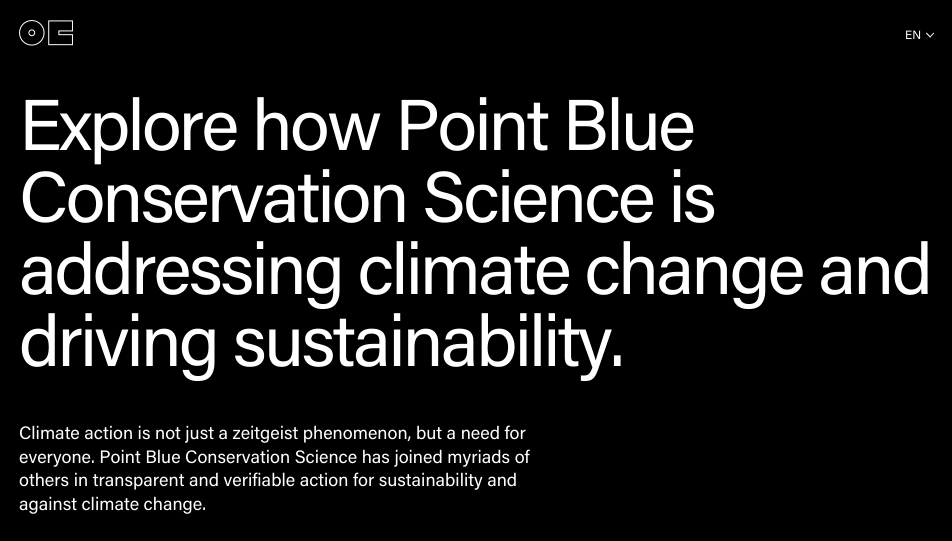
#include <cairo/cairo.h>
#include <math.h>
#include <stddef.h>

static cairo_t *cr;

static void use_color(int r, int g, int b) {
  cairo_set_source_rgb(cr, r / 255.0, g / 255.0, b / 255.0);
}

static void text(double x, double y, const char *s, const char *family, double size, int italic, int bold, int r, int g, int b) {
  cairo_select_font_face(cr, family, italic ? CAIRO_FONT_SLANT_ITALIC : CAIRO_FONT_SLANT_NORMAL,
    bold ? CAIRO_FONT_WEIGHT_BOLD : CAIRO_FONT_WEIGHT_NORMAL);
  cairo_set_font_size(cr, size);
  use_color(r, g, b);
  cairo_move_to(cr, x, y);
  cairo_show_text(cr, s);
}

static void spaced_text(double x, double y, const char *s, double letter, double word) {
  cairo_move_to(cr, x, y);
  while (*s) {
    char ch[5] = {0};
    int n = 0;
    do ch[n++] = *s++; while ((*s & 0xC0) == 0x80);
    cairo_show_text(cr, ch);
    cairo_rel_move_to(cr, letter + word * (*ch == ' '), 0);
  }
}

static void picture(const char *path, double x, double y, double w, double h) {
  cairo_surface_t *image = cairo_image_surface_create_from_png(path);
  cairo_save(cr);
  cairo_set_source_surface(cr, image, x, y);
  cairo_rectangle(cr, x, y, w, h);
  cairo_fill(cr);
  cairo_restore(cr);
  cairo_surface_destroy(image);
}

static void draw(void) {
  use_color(0, 0, 0);
  cairo_paint(cr);
  picture("img_01.png", 19, 20, 54, 26);
  use_color(255, 255, 255);
  cairo_new_path(cr);
  cairo_move_to(cr, 933.5, 32.5);
  cairo_line_to(cr, 934, 33.5);
  cairo_line_to(cr, 930, 37.5);
  cairo_line_to(cr, 929.5, 37);
  cairo_close_path(cr);
  cairo_fill(cr);
  cairo_new_path(cr);
  cairo_move_to(cr, 926.5, 32.5);
  cairo_line_to(cr, 931, 37);
  cairo_line_to(cr, 930, 37.5);
  cairo_line_to(cr, 926, 33.5);
  cairo_close_path(cr);
  cairo_fill(cr);
  text(905, 39, "EN", "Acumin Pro", 12, 0, 0, 255, 255, 255);
  cairo_set_font_size(cr, 72);
  spaced_text(19, 150, "Explore how Point Blue", -2.7, 0);
  spaced_text(19, 222, "Conservation Science is", -2.7, 0);
  spaced_text(19, 294, "addressing climate change and", -2.7, 0);
  spaced_text(19, 366, "driving sustainability.", -2.7, 0);
  text(19, 439, "Climate action is not just a zeitgeist phenomenon, but a need for", "Acumin Pro", 18, 0, 0, 255, 255, 255);
  text(19, 463, "everyone. Point Blue Conservation Science has joined myriads of", "Acumin Pro", 18, 0, 0, 255, 255, 255);
  text(19, 486, "others in transparent and verifiable action for sustainability and", "Acumin Pro", 18, 0, 0, 255, 255, 255);
  text(19, 510, "against climate change.", "Acumin Pro", 18, 0, 0, 255, 255, 255);
}

int main(void) {
  cairo_surface_t *surface = cairo_image_surface_create(CAIRO_FORMAT_RGB24, 952, 541);
  cr = cairo_create(surface);
  cairo_font_options_t *options = cairo_font_options_create();
  cairo_font_options_set_hint_metrics(options, CAIRO_HINT_METRICS_OFF);
  cairo_font_options_set_hint_style(options, CAIRO_HINT_STYLE_NONE);
  cairo_set_font_options(cr, options);
  cairo_set_miter_limit(cr, 4);
  draw();
  cairo_surface_write_to_png(surface, "out.png");
  cairo_font_options_destroy(options);
  cairo_destroy(cr);
  cairo_surface_destroy(surface);
  return 0;
}
